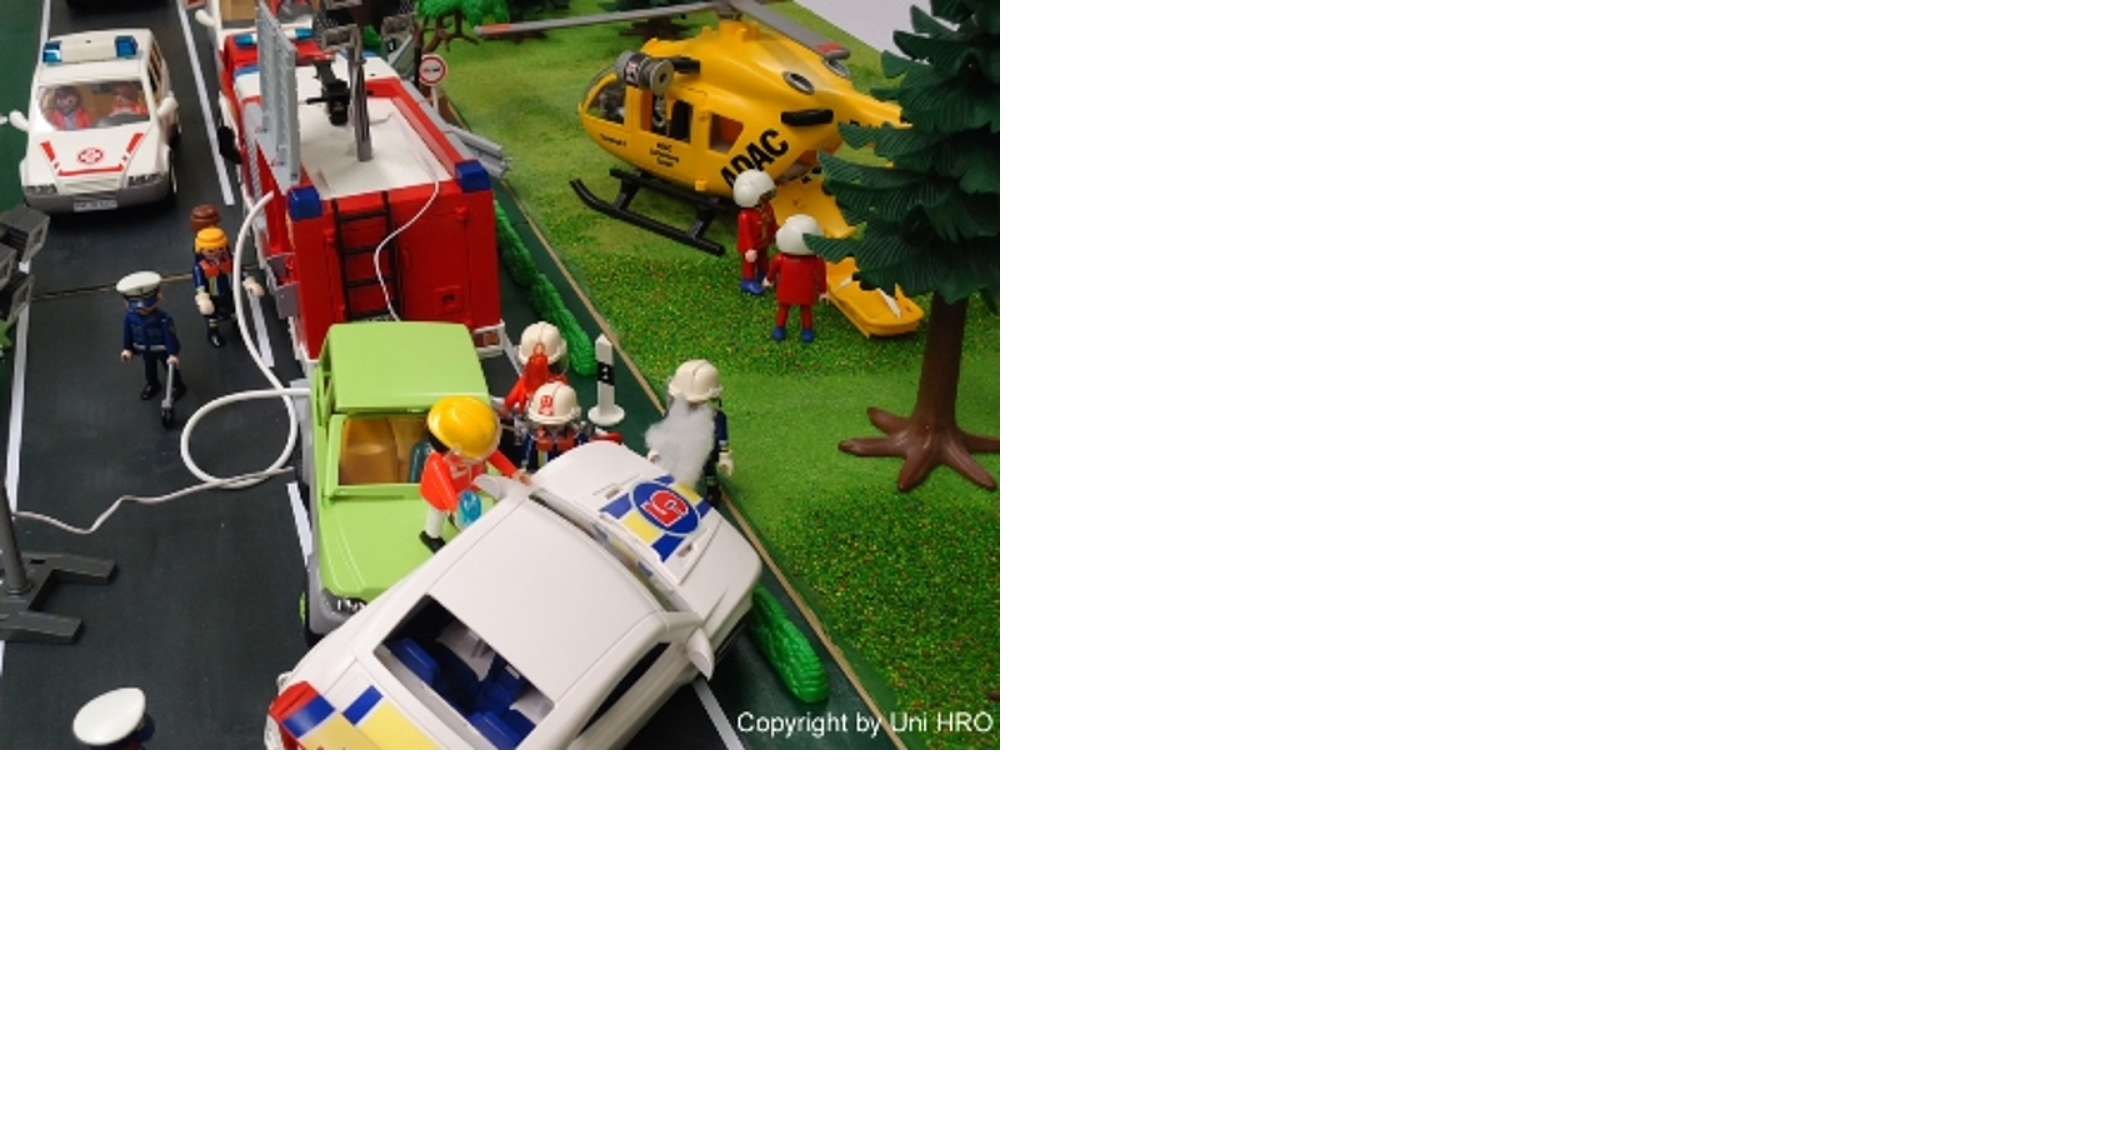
#include <cairo/cairo.h>
#include <math.h>
#include <stddef.h>

static cairo_t *cr;

static void use_color(int r, int g, int b) {
  cairo_set_source_rgb(cr, r / 255.0, g / 255.0, b / 255.0);
}

static void picture(const char *path, double x, double y, double w, double h) {
  cairo_surface_t *image = cairo_image_surface_create_from_png(path);
  cairo_save(cr);
  cairo_set_source_surface(cr, image, x, y);
  cairo_rectangle(cr, x, y, w, h);
  cairo_fill(cr);
  cairo_restore(cr);
  cairo_surface_destroy(image);
}

static void draw(void) {
  use_color(255, 255, 255);
  cairo_paint(cr);
  picture("img_01.png", 0, 0, 1000, 750);
}

int main(void) {
  cairo_surface_t *surface = cairo_image_surface_create(CAIRO_FORMAT_RGB24, 2118, 1147);
  cr = cairo_create(surface);
  cairo_font_options_t *options = cairo_font_options_create();
  cairo_font_options_set_hint_metrics(options, CAIRO_HINT_METRICS_OFF);
  cairo_font_options_set_hint_style(options, CAIRO_HINT_STYLE_NONE);
  cairo_set_font_options(cr, options);
  cairo_set_miter_limit(cr, 4);
  draw();
  cairo_surface_write_to_png(surface, "out.png");
  cairo_font_options_destroy(options);
  cairo_destroy(cr);
  cairo_surface_destroy(surface);
  return 0;
}
